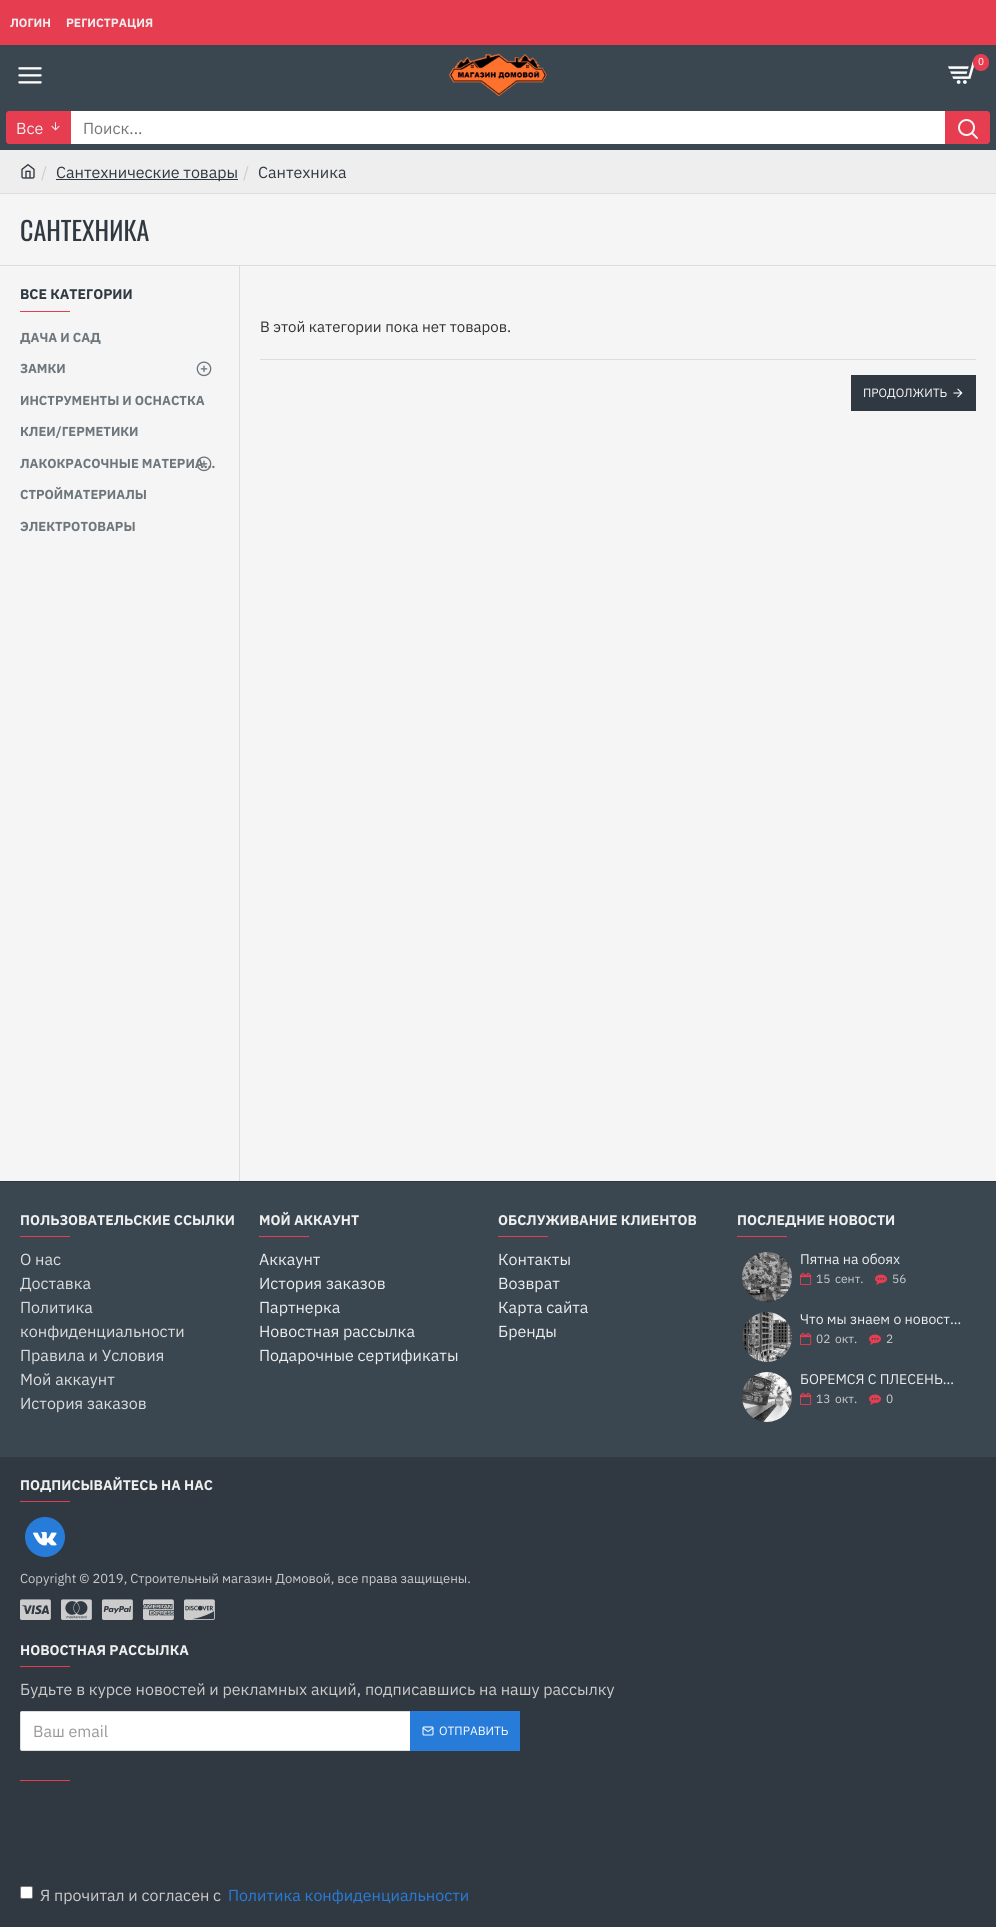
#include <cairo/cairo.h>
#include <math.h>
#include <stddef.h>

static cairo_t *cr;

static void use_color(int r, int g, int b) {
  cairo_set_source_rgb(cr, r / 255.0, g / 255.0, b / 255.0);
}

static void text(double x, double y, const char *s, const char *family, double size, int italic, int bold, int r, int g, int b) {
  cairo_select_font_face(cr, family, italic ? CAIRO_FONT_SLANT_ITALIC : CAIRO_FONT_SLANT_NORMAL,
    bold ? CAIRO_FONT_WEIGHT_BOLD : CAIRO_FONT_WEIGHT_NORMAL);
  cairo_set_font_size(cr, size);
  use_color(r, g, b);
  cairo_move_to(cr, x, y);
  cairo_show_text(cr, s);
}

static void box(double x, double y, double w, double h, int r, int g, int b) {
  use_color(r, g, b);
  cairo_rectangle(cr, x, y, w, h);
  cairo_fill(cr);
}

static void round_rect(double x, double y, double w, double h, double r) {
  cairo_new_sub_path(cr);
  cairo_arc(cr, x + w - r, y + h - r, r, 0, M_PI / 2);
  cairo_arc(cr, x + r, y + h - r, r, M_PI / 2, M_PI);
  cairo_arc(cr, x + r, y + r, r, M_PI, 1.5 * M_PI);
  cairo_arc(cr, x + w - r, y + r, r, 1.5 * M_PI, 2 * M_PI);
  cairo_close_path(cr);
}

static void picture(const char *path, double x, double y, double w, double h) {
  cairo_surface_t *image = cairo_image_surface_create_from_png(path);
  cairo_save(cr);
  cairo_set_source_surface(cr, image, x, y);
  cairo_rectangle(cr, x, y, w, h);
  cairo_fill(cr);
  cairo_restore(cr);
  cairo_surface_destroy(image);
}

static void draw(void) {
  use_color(245, 245, 245);
  cairo_paint(cr);
  box(0, 0, 996, 45, 231, 61, 80);
  box(0, 45, 996, 105, 58, 71, 80);
  picture("img_01.png", 448, 53, 99, 44);
  picture("img_02.png", 948, 61, 26, 23);
  use_color(231, 61, 80);
  round_rect(973, 54, 16, 17, 8);
  cairo_fill(cr);
  picture("img_03.png", 18, 67, 24, 17);
  cairo_new_path(cr);
  cairo_move_to(cr, 9, 111);
  cairo_line_to(cr, 71, 111);
  cairo_line_to(cr, 71, 144);
  cairo_line_to(cr, 9, 144);
  cairo_curve_to(cr, 7.5, 144, 6, 142.5, 6, 141);
  cairo_line_to(cr, 6, 114);
  cairo_curve_to(cr, 6, 112.5, 7.5, 111, 9, 111);
  cairo_close_path(cr);
  cairo_fill(cr);
  picture("img_04.png", 51, 122, 9, 9);
  box(71, 111, 874, 33, 255, 255, 255);
  use_color(231, 61, 80);
  cairo_new_path(cr);
  cairo_move_to(cr, 945, 111);
  cairo_line_to(cr, 987, 111);
  cairo_curve_to(cr, 988.5, 111, 990, 112.5, 990, 114);
  cairo_line_to(cr, 990, 141);
  cairo_curve_to(cr, 990, 142.5, 988.5, 144, 987, 144);
  cairo_line_to(cr, 945, 144);
  cairo_close_path(cr);
  cairo_fill(cr);
  picture("img_05.png", 958, 119, 20, 20);
  box(0, 150, 996, 43, 238, 238, 238);
  box(0, 193, 996, 1, 221, 221, 221);
  picture("img_06.png", 21, 164, 14, 15);
  box(56, 179, 182, 1, 48, 56, 65);
  box(0, 265, 996, 1, 221, 221, 221);
  box(239, 266, 1, 915, 221, 221, 221);
  box(20, 311, 50, 1, 231, 61, 80);
  picture("img_07.png", 196, 361, 16, 16);
  box(260, 359, 716, 1, 221, 221, 221);
  box(851, 375, 125, 36, 48, 56, 65);
  picture("img_09.png", 953, 388, 10, 10);
  box(0, 1182, 996, 275, 58, 71, 80);
  box(0, 1181, 996, 1, 48, 56, 65);
  box(20, 1236, 50, 1, 231, 61, 80);
  box(259, 1236, 50, 1, 231, 61, 80);
  box(498, 1236, 50, 1, 231, 61, 80);
  box(737, 1236, 50, 1, 231, 61, 80);
  picture("img_10.png", 742, 1252, 50, 50);
  picture("img_11.png", 800, 1272, 12, 13);
  picture("img_12.png", 875, 1274, 12, 11);
  picture("img_13.png", 742, 1312, 50, 50);
  picture("img_11.png", 800, 1332, 12, 13);
  picture("img_12.png", 869, 1334, 12, 11);
  picture("img_14.png", 742, 1372, 50, 50);
  picture("img_11.png", 800, 1392, 12, 13);
  picture("img_12.png", 869, 1394, 12, 11);
  box(0, 1457, 996, 470, 48, 56, 65);
  box(20, 1501, 50, 1, 231, 61, 80);
  use_color(39, 124, 217);
  cairo_arc(cr, 45, 1537, 20, 0, 2 * M_PI);
  cairo_fill(cr);
  picture("img_15.png", 33, 1532, 24, 14);
  picture("img_16.png", 20, 1599, 31, 21);
  picture("img_17.png", 61, 1599, 31, 21);
  picture("img_18.png", 102, 1599, 31, 21);
  picture("img_19.png", 143, 1599, 31, 21);
  picture("img_20.png", 184, 1599, 31, 21);
  box(20, 1666, 50, 1, 231, 61, 80);
  use_color(255, 255, 255);
  round_rect(20.5, 1711.5, 499, 39, 1.5);
  cairo_fill_preserve(cr);
  use_color(221, 221, 221);
  cairo_set_line_width(cr, 1);
  cairo_stroke(cr);
  box(410, 1711, 110, 40, 39, 124, 217);
  picture("img_21.png", 422, 1726, 12, 10);
  box(20, 1780, 50, 1, 231, 61, 80);
  use_color(255, 255, 255);
  round_rect(20.5, 1886.5, 12, 12, 1.5);
  cairo_fill_preserve(cr);
  use_color(118, 118, 118);
  cairo_stroke(cr);
  text(10, 27, "ЛОГИН", "IBM Plex Sans", 12, 0, 1, 238, 238, 238);
  text(66, 27, "РЕГИСТРАЦИЯ", "IBM Plex Sans", 12, 0, 1, 238, 238, 238);
  text(978, 65, "0", "IBM Plex Sans", 10, 0, 0, 255, 255, 255);
  text(16, 134, "Все", "IBM Plex Sans", 16, 0, 0, 238, 238, 238);
  text(83, 134, "Поиск...", "IBM Plex Sans", 16, 0, 0, 117, 117, 117);
  text(41, 178, "/", "IBM Plex Sans", 16, 0, 0, 204, 204, 204);
  text(56, 178, "Сантехнические товары", "IBM Plex Sans", 16, 0, 0, 48, 56, 65);
  text(243, 178, "/", "IBM Plex Sans", 16, 0, 0, 204, 204, 204);
  text(258, 178, "Сантехника", "IBM Plex Sans", 16, 0, 0, 48, 56, 65);
  text(20, 241, "САНТЕХНИКА", "Oswald", 26, 0, 0, 48, 56, 65);
  text(20, 299, "ВСЕ КАТЕГОРИИ", "IBM Plex Sans", 14, 0, 1, 48, 56, 65);
  text(20, 342, "ДАЧА И САД", "IBM Plex Sans", 13, 0, 1, 109, 118, 125);
  text(20, 373, "ЗАМКИ", "IBM Plex Sans", 13, 0, 1, 109, 118, 125);
  text(20, 405, "ИНСТРУМЕНТЫ И ОСНАСТКА", "IBM Plex Sans", 13, 0, 1, 109, 118, 125);
  text(20, 436, "КЛЕИ/ГЕРМЕТИКИ", "IBM Plex Sans", 13, 0, 1, 109, 118, 125);
  text(20, 468, "ЛАКОКРАСОЧНЫЕ МАТЕРИА…", "IBM Plex Sans", 13, 0, 1, 109, 118, 125);
  picture("img_08.png", 196, 456, 16, 16);
  text(20, 499, "СТРОЙМАТЕРИАЛЫ", "IBM Plex Sans", 13, 0, 1, 109, 118, 125);
  text(20, 531, "ЭЛЕКТРОТОВАРЫ", "IBM Plex Sans", 13, 0, 1, 109, 118, 125);
  text(260, 332, "В этой категории пока нет товаров.", "IBM Plex Sans", 15, 0, 0, 51, 51, 51);
  text(863, 397, "ПРОДОЛЖИТЬ", "IBM Plex Sans", 12, 0, 0, 255, 255, 255);
  text(20, 1225, "ПОЛЬЗОВАТЕЛЬСКИЕ ССЫЛКИ", "IBM Plex Sans", 14, 0, 1, 238, 238, 238);
  text(20, 1265, "О нас", "IBM Plex Sans", 16, 0, 0, 221, 221, 221);
  text(20, 1289, "Доставка", "IBM Plex Sans", 16, 0, 0, 221, 221, 221);
  text(20, 1313, "Политика", "IBM Plex Sans", 16, 0, 0, 221, 221, 221);
  text(20, 1337, "конфиденциальности", "IBM Plex Sans", 16, 0, 0, 221, 221, 221);
  text(20, 1361, "Правила и Условия", "IBM Plex Sans", 16, 0, 0, 221, 221, 221);
  text(20, 1385, "Мой аккаунт", "IBM Plex Sans", 16, 0, 0, 221, 221, 221);
  text(20, 1409, "История заказов", "IBM Plex Sans", 16, 0, 0, 221, 221, 221);
  text(259, 1225, "МОЙ АККАУНТ", "IBM Plex Sans", 14, 0, 1, 238, 238, 238);
  text(259, 1265, "Аккаунт", "IBM Plex Sans", 16, 0, 0, 238, 238, 238);
  text(259, 1289, "История заказов", "IBM Plex Sans", 16, 0, 0, 238, 238, 238);
  text(259, 1313, "Партнерка", "IBM Plex Sans", 16, 0, 0, 238, 238, 238);
  text(259, 1337, "Новостная рассылка", "IBM Plex Sans", 16, 0, 0, 238, 238, 238);
  text(259, 1361, "Подарочные сертификаты", "IBM Plex Sans", 16, 0, 0, 238, 238, 238);
  text(498, 1225, "ОБСЛУЖИВАНИЕ КЛИЕНТОВ", "IBM Plex Sans", 14, 0, 1, 238, 238, 238);
  text(498, 1265, "Контакты", "IBM Plex Sans", 16, 0, 0, 238, 238, 238);
  text(498, 1289, "Возврат", "IBM Plex Sans", 16, 0, 0, 238, 238, 238);
  text(498, 1313, "Карта сайта", "IBM Plex Sans", 16, 0, 0, 238, 238, 238);
  text(498, 1337, "Бренды", "IBM Plex Sans", 16, 0, 0, 238, 238, 238);
  text(737, 1225, "ПОСЛЕДНИЕ НОВОСТИ", "IBM Plex Sans", 14, 0, 1, 238, 238, 238);
  text(800, 1264, "Пятна на обоях", "IBM Plex Sans", 14, 0, 0, 238, 238, 238);
  text(816, 1283, "15", "IBM Plex Sans", 12, 0, 0, 204, 204, 204);
  text(835, 1283, "сент.", "IBM Plex Sans", 12, 0, 0, 204, 204, 204);
  text(892, 1283, "56", "IBM Plex Sans", 12, 0, 0, 204, 204, 204);
  text(800, 1324, "Что мы знаем о новост…", "IBM Plex Sans", 14, 0, 0, 238, 238, 238);
  text(816, 1343, "02", "IBM Plex Sans", 12, 0, 0, 204, 204, 204);
  text(835, 1343, "окт.", "IBM Plex Sans", 12, 0, 0, 204, 204, 204);
  text(886, 1343, "2", "IBM Plex Sans", 12, 0, 0, 204, 204, 204);
  text(800, 1384, "БОРЕМСЯ С ПЛЕСЕНЬ…", "IBM Plex Sans", 14, 0, 0, 238, 238, 238);
  text(816, 1403, "13", "IBM Plex Sans", 12, 0, 0, 204, 204, 204);
  text(835, 1403, "окт.", "IBM Plex Sans", 12, 0, 0, 204, 204, 204);
  text(886, 1403, "0", "IBM Plex Sans", 12, 0, 0, 204, 204, 204);
  text(20, 1490, "ПОДПИСЫВАЙТЕСЬ НА НАС", "IBM Plex Sans", 14, 0, 1, 238, 238, 238);
  text(20, 1583, "Copyright © 2019, Строительный магазин Домовой, все права защищены.", "IBM Plex Sans", 13, 0, 0, 204, 204, 204);
  text(20, 1655, "НОВОСТНАЯ РАССЫЛКА", "IBM Plex Sans", 14, 0, 1, 238, 238, 238);
  text(20, 1695, "Будьте в курсе новостей и рекламных акций, подписавшись на нашу рассылку", "IBM Plex Sans", 16, 0, 0, 204, 204, 204);
  text(33, 1737, "Ваш email", "IBM Plex Sans", 16, 0, 0, 153, 153, 153);
  text(439, 1735, "ОТПРАВИТЬ", "IBM Plex Sans", 12, 0, 0, 255, 255, 255);
  text(40, 1901, "Я прочитал и согласен с", "IBM Plex Sans", 16, 0, 0, 204, 204, 204);
  text(228, 1901, "Политика конфиденциальности", "IBM Plex Sans", 16, 0, 0, 39, 124, 217);
}

int main(void) {
  cairo_surface_t *surface = cairo_image_surface_create(CAIRO_FORMAT_RGB24, 996, 1927);
  cr = cairo_create(surface);
  cairo_font_options_t *options = cairo_font_options_create();
  cairo_font_options_set_hint_metrics(options, CAIRO_HINT_METRICS_OFF);
  cairo_font_options_set_hint_style(options, CAIRO_HINT_STYLE_NONE);
  cairo_set_font_options(cr, options);
  cairo_set_miter_limit(cr, 4);
  draw();
  cairo_surface_write_to_png(surface, "out.png");
  cairo_font_options_destroy(options);
  cairo_destroy(cr);
  cairo_surface_destroy(surface);
  return 0;
}
